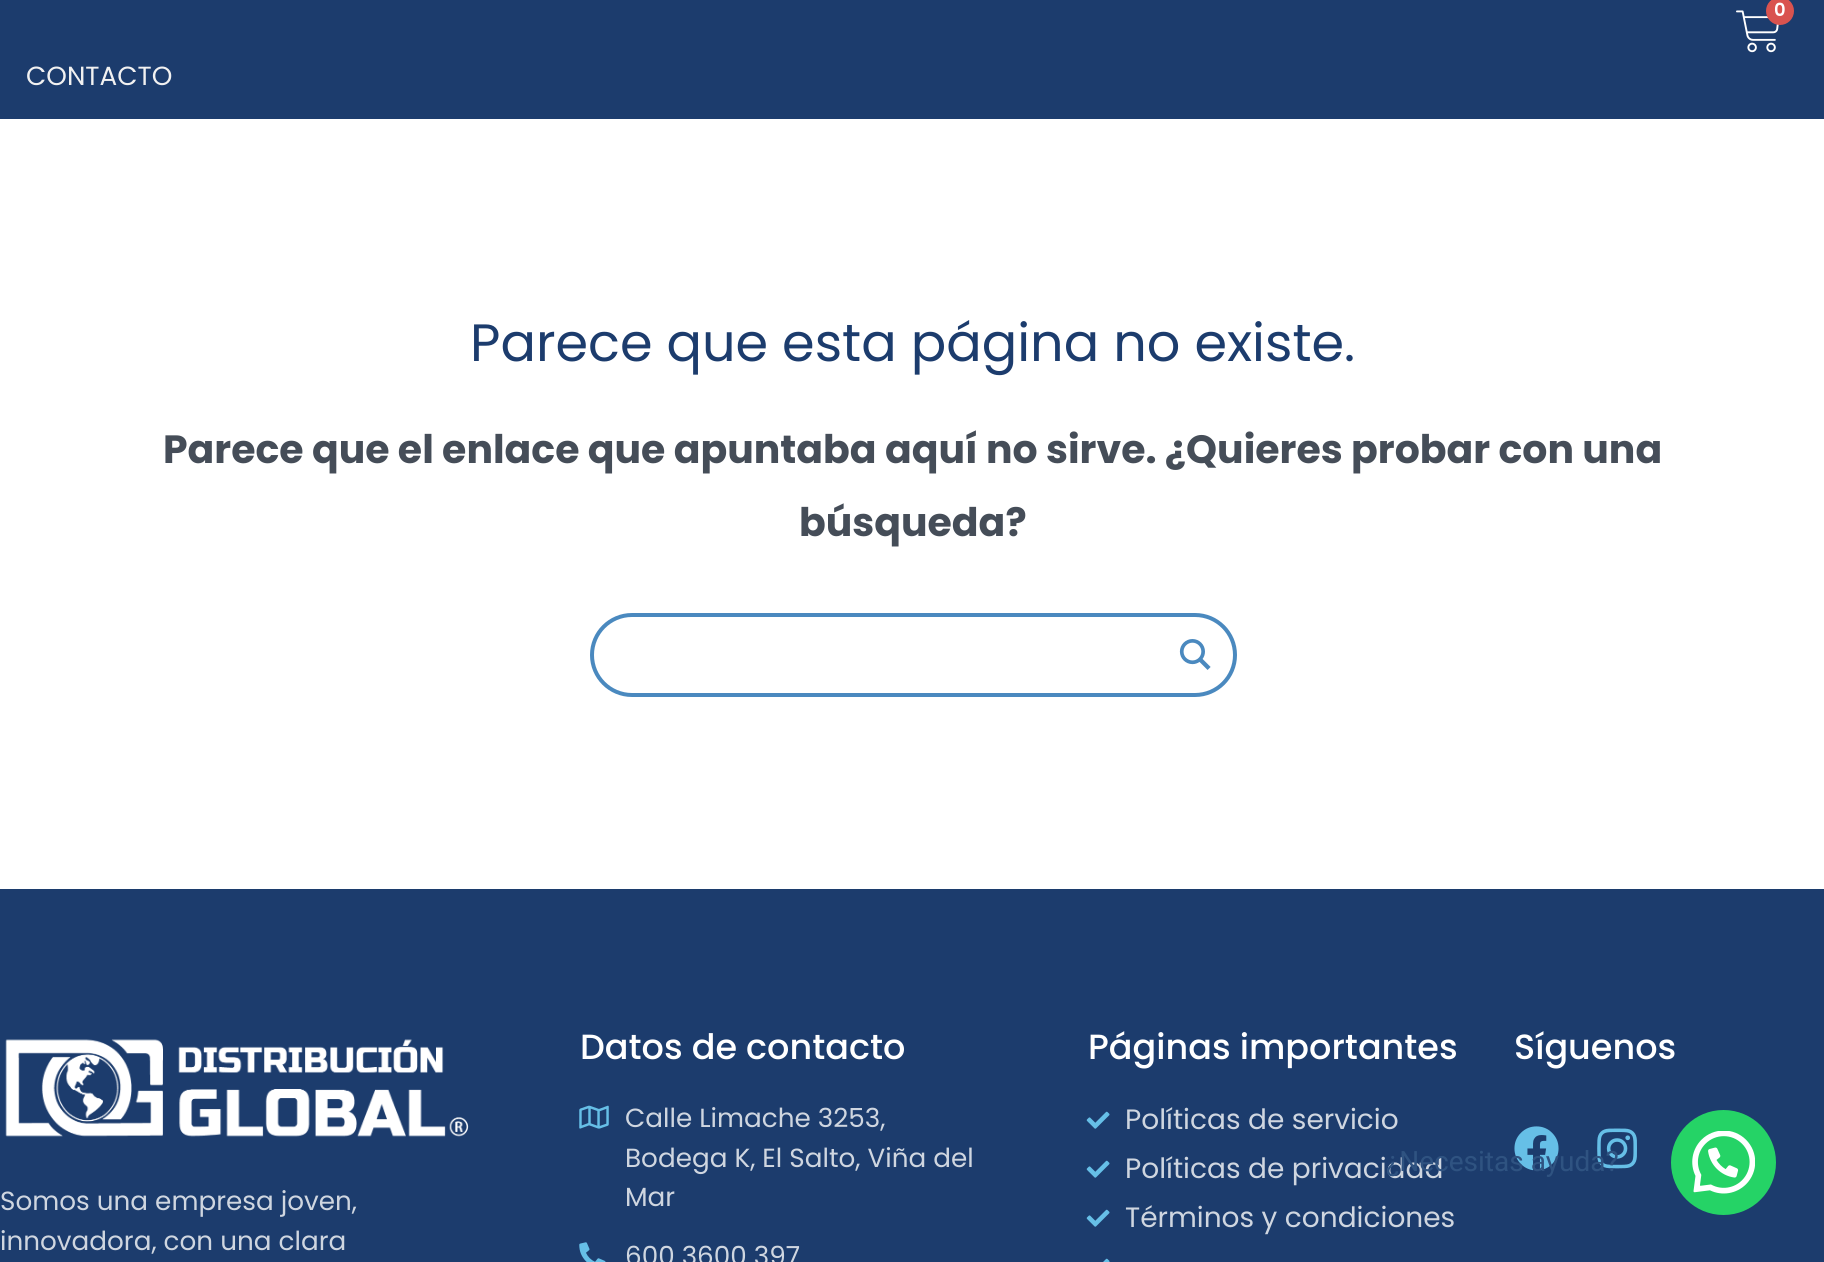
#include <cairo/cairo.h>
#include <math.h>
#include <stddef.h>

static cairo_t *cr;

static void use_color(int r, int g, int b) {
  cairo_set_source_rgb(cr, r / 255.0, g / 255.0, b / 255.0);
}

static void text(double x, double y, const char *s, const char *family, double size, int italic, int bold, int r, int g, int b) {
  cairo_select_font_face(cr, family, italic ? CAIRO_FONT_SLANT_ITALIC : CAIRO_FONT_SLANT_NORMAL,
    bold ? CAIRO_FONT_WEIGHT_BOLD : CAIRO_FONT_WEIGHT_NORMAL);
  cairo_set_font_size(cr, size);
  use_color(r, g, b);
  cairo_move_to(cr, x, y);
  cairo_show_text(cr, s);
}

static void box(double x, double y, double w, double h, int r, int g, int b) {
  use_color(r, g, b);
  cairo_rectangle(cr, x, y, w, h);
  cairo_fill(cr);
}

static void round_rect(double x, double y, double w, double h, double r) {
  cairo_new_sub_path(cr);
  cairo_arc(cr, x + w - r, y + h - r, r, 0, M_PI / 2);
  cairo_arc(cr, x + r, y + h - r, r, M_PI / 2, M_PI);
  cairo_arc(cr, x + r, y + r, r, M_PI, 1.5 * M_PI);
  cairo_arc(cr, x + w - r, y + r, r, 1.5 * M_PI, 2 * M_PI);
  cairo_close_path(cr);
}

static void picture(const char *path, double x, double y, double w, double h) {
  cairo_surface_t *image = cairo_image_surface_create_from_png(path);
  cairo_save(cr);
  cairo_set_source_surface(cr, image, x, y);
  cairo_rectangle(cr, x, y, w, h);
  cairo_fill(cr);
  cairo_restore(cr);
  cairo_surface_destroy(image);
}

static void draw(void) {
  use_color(255, 255, 255);
  cairo_paint(cr);
  box(0, 0, 1824, 119, 28, 60, 109);
  picture("img_01.png", 1736, 10, 43, 43);
  use_color(217, 83, 79);
  cairo_arc(cr, 1780, 11, 14, 0, 2 * M_PI);
  cairo_fill(cr);
  round_rect(592, 615, 643, 80, 40);
  use_color(74, 137, 191);
  cairo_set_line_width(cr, 4);
  cairo_stroke(cr);
  picture("img_02.png", 1179, 639, 32, 31);
  box(0, 889, 1824, 373, 28, 60, 109);
  picture("img_03.png", 5, 1039, 464, 98);
  picture("img_04.png", 579, 1105, 30, 24);
  picture("img_05.png", 579, 1242, 27, 20);
  picture("img_06.png", 1086, 1111, 24, 18);
  picture("img_06.png", 1086, 1160, 24, 18);
  picture("img_06.png", 1086, 1209, 24, 18);
  picture("img_07.png", 1103, 1258, 7, 4);
  picture("img_08.png", 1514, 1126, 45, 45);
  picture("img_09.png", 1597, 1128, 40, 41);
  use_color(37, 211, 102);
  cairo_arc(cr, 1723.5, 1162.5, 52.5, 0, 2 * M_PI);
  cairo_fill(cr);
  picture("img_10.png", 1692, 1131, 63, 63);
  text(1774, 16, "0", "Poppins SemiBold", 18, 0, 0, 255, 255, 255);
  text(26, 85, "CONTACTO", "Poppins", 26.25, 0, 0, 241, 241, 241);
  text(470, 361, "Parece que esta página no existe.", "Poppins", 52.5, 0, 0, 28, 60, 109);
  text(163, 463, "Parece que el enlace que apuntaba aquí no sirve. ¿Quieres probar con una", "Poppins", 39.4, 0, 1, 69, 77, 88);
  text(799, 536, "búsqueda?", "Poppins", 39.4, 0, 1, 69, 77, 88);
  text(0, 1210, "Somos una empresa joven,", "Poppins", 26.25, 0, 0, 207, 214, 224);
  text(0, 1250, "innovadora, con una clara", "Poppins", 26.25, 0, 0, 207, 214, 224);
  text(580, 1059, "Datos de contacto", "Poppins Medium", 35, 0, 0, 255, 255, 255);
  text(625, 1127, "Calle Limache 3253,", "Poppins", 26.25, 0, 0, 207, 214, 224);
  text(625, 1167, "Bodega K, El Salto, Viña del", "Poppins", 26.25, 0, 0, 207, 214, 224);
  text(625, 1206, "Mar", "Poppins", 26.25, 0, 0, 207, 214, 224);
  text(625, 1265, "600 3600 397", "Poppins", 26.25, 0, 0, 207, 214, 224);
  text(1088, 1059, "Páginas importantes", "Poppins Medium", 35, 0, 0, 255, 255, 255);
  text(1125, 1129, "Políticas de servicio", "Poppins", 28, 0, 0, 207, 214, 224);
  text(1125, 1178, "Políticas de privacidad", "Poppins", 28, 0, 0, 207, 214, 224);
  text(1125, 1227, "Términos y condiciones", "Poppins", 28, 0, 0, 207, 214, 224);
  text(1514, 1059, "Síguenos", "Poppins Medium", 35, 0, 0, 255, 255, 255);
  text(1386, 1171, "¿Necesitas ayuda?", "Roboto", 28, 0, 0, 47, 83, 129);
}

int main(void) {
  cairo_surface_t *surface = cairo_image_surface_create(CAIRO_FORMAT_RGB24, 1824, 1262);
  cr = cairo_create(surface);
  cairo_font_options_t *options = cairo_font_options_create();
  cairo_font_options_set_hint_metrics(options, CAIRO_HINT_METRICS_OFF);
  cairo_font_options_set_hint_style(options, CAIRO_HINT_STYLE_NONE);
  cairo_set_font_options(cr, options);
  cairo_set_miter_limit(cr, 4);
  draw();
  cairo_surface_write_to_png(surface, "out.png");
  cairo_font_options_destroy(options);
  cairo_destroy(cr);
  cairo_surface_destroy(surface);
  return 0;
}
